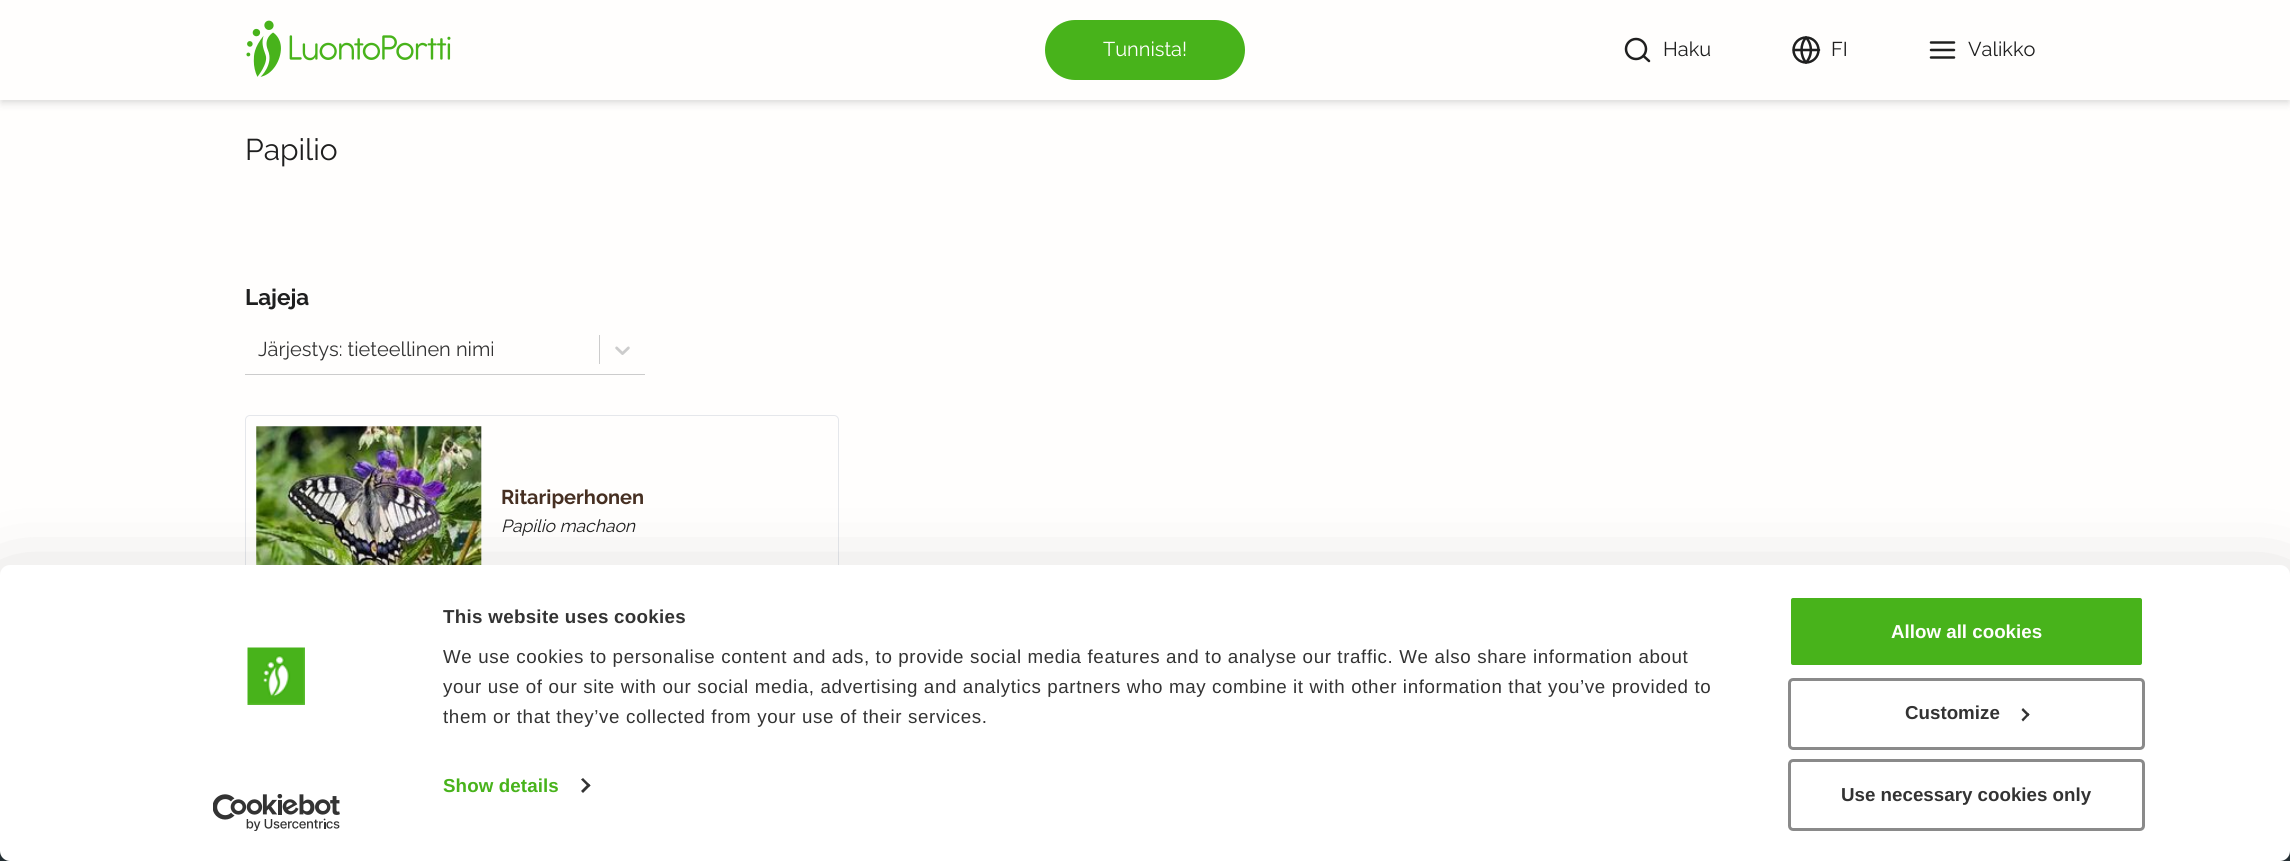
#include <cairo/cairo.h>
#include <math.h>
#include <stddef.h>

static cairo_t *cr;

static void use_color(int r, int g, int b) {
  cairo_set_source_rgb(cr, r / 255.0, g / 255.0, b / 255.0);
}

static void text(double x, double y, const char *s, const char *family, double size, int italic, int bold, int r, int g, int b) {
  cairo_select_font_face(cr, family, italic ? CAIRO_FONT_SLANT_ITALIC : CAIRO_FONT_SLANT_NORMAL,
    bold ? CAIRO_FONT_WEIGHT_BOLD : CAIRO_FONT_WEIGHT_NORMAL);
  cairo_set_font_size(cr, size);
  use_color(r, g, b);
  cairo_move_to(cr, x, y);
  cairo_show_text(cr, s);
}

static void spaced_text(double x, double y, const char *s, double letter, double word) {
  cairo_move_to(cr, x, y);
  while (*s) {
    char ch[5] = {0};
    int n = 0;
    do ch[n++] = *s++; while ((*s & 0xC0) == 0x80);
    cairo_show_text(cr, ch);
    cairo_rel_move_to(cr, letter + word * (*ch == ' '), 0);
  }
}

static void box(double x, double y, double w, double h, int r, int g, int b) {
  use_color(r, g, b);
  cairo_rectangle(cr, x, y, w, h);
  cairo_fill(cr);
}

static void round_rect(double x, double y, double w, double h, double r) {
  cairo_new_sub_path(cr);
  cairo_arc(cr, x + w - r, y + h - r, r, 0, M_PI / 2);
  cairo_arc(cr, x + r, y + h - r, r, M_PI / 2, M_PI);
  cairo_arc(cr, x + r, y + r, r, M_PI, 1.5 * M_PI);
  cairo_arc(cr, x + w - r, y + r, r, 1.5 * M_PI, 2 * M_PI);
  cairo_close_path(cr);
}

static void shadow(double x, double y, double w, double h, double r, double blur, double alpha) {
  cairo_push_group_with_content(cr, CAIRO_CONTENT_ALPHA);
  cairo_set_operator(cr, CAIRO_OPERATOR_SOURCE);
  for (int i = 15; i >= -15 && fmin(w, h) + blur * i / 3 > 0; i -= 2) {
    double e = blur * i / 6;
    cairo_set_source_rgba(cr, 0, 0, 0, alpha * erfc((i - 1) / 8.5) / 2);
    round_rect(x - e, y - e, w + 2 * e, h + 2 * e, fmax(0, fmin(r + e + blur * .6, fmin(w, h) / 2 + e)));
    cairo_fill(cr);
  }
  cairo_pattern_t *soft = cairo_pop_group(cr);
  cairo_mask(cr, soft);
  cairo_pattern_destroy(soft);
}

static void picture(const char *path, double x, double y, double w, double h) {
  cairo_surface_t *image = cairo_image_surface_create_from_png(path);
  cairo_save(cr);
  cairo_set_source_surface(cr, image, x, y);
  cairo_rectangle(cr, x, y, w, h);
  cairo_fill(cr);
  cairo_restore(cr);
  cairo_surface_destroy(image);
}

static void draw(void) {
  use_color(255, 254, 253);
  cairo_paint(cr);
  use_color(0, 0, 0);
  shadow(1, 4, 2288, 97, 0, 2.5, 0.06);
  shadow(1, 6, 2288, 98, 0, 4, 0.1);
  box(0, 0, 2290, 100, 255, 254, 253);
  picture("img_01.png", 246, 20, 205, 57);
  use_color(72, 179, 27);
  round_rect(1045, 20, 200, 60, 30);
  cairo_fill(cr);
  cairo_arc(cr, 1636, 49, 10, 0, 2 * M_PI);
  use_color(31, 31, 31);
  cairo_set_line_width(cr, 2.5);
  cairo_stroke(cr);
  cairo_new_path(cr);
  cairo_move_to(cr, 1649, 61);
  cairo_line_to(cr, 1643.5, 56);
  cairo_set_line_cap(cr, CAIRO_LINE_CAP_ROUND);
  cairo_set_line_join(cr, CAIRO_LINE_JOIN_ROUND);
  cairo_stroke(cr);
  cairo_arc(cr, 1806, 50, 12.5, 0, 2 * M_PI);
  cairo_set_line_cap(cr, CAIRO_LINE_CAP_BUTT);
  cairo_set_line_join(cr, CAIRO_LINE_JOIN_MITER);
  cairo_stroke(cr);
  cairo_new_path(cr);
  cairo_move_to(cr, 1794, 50);
  cairo_line_to(cr, 1819, 50);
  cairo_move_to(cr, 1806, 37.5);
  cairo_curve_to(cr, 1812.5, 44.5, 1812.5, 55.5, 1806, 62.5);
  cairo_curve_to(cr, 1800, 55.5, 1800, 44.5, 1806, 37.5);
  cairo_close_path(cr);
  cairo_set_line_cap(cr, CAIRO_LINE_CAP_ROUND);
  cairo_set_line_join(cr, CAIRO_LINE_JOIN_ROUND);
  cairo_stroke(cr);
  cairo_new_path(cr);
  cairo_move_to(cr, 1931, 50);
  cairo_line_to(cr, 1954, 50);
  cairo_move_to(cr, 1931, 42.5);
  cairo_line_to(cr, 1954, 42.5);
  cairo_move_to(cr, 1931, 57.5);
  cairo_line_to(cr, 1954, 57.5);
  cairo_stroke(cr);
  box(245, 374, 400, 1, 204, 204, 204);
  box(599, 335, 1, 29, 204, 204, 204);
  picture("img_02.png", 615, 346, 15, 9);
  round_rect(245.5, 415.5, 593, 190, 4.5);
  use_color(229, 231, 235);
  cairo_set_line_width(cr, 1);
  cairo_set_line_cap(cr, CAIRO_LINE_CAP_BUTT);
  cairo_set_line_join(cr, CAIRO_LINE_JOIN_MITER);
  cairo_stroke(cr);
  picture("img_03.png", 256, 426, 226, 139);
  box(0, 851, 2290, 10, 42, 54, 59);
  use_color(0, 0, 0);
  shadow(0, 603, 2290, 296, 10, 44, 0.3);
  use_color(255, 255, 255);
  round_rect(0, 565, 2290, 296, 10);
  cairo_fill(cr);
  picture("img_04.png", 247, 647, 58, 58);
  picture("img_05.png", 213, 794, 127, 37);
  use_color(51, 51, 51);
  cairo_new_path(cr);
  cairo_move_to(cr, 583, 778);
  cairo_line_to(cr, 590.5, 785.5);
  cairo_line_to(cr, 588.5, 787);
  cairo_line_to(cr, 581, 779.5);
  cairo_close_path(cr);
  cairo_fill(cr);
  cairo_new_path(cr);
  cairo_move_to(cr, 588.5, 783.5);
  cairo_line_to(cr, 590.5, 785.5);
  cairo_line_to(cr, 583, 793);
  cairo_line_to(cr, 581, 791);
  cairo_close_path(cr);
  cairo_fill(cr);
  use_color(72, 179, 27);
  round_rect(1789.5, 596.5, 354, 70, 3.5);
  cairo_fill_preserve(cr);
  use_color(255, 255, 255);
  cairo_set_line_width(cr, 3);
  cairo_stroke(cr);
  round_rect(1789.5, 679.5, 354, 69, 3.5);
  use_color(138, 138, 138);
  cairo_stroke(cr);
  use_color(51, 51, 51);
  cairo_new_path(cr);
  cairo_move_to(cr, 2023, 708);
  cairo_line_to(cr, 2029.5, 714.5);
  cairo_line_to(cr, 2028, 716.5);
  cairo_line_to(cr, 2021.5, 710);
  cairo_close_path(cr);
  cairo_fill(cr);
  cairo_new_path(cr);
  cairo_move_to(cr, 2028, 713);
  cairo_line_to(cr, 2029.5, 714.5);
  cairo_line_to(cr, 2023, 721.5);
  cairo_line_to(cr, 2021.5, 719.5);
  cairo_close_path(cr);
  cairo_fill(cr);
  round_rect(1789.5, 760.5, 354, 69, 3.5);
  use_color(138, 138, 138);
  cairo_stroke(cr);
  text(1103, 56, "Tunnista!", "Raleway", 20, 0, 0, 255, 254, 253);
  text(1663, 56, "Haku", "Raleway", 20, 0, 0, 31, 31, 31);
  text(1831, 56, "FI", "Raleway", 20, 0, 0, 31, 31, 31);
  text(1968, 56, "Valikko", "Raleway", 20, 0, 0, 31, 31, 31);
  text(245, 160, "Papilio", "Raleway", 30, 0, 0, 31, 31, 31);
  text(245, 305, "Lajeja", "Raleway", 22.5, 0, 1, 31, 31, 31);
  text(258, 356, "Järjestys: tieteellinen nimi", "Raleway", 20, 0, 0, 51, 51, 51);
  text(501, 504, "Ritariperhonen", "Raleway", 20, 0, 1, 70, 47, 34);
  text(501, 532, "Papilio machaon", "Raleway", 17.5, 1, 0, 31, 31, 31);
  cairo_select_font_face(cr, "Liberation Sans", CAIRO_FONT_SLANT_NORMAL, CAIRO_FONT_WEIGHT_BOLD);
  cairo_set_font_size(cr, 18.75);
  use_color(51, 51, 51);
  spaced_text(443, 623, "This website uses cookies", 0.3, 0);
  cairo_select_font_face(cr, "Liberation Sans", CAIRO_FONT_SLANT_NORMAL, CAIRO_FONT_WEIGHT_NORMAL);
  spaced_text(443, 663, "We use cookies to personalise content and ads, to provide social media features and to analyse our traffic. We also share information about", 0.62, 0);
  spaced_text(443, 693, "your use of our site with our social media, advertising and analytics partners who may combine it with other information that you’ve provided to", 0.62, 0);
  spaced_text(443, 723, "them or that they’ve collected from your use of their services.", 0.62, 0);
  cairo_select_font_face(cr, "Liberation Sans", CAIRO_FONT_SLANT_NORMAL, CAIRO_FONT_WEIGHT_BOLD);
  use_color(72, 179, 27);
  spaced_text(443, 792, "Show details", 0.1, 0);
  text(1891, 638, "Allow all cookies", "Liberation Sans", 18.75, 0, 1, 255, 254, 253);
  text(1905, 719, "Customize", "Liberation Sans", 18.75, 0, 1, 51, 51, 51);
  text(1841, 801, "Use necessary cookies only", "Liberation Sans", 18.75, 0, 1, 51, 51, 51);
}

int main(void) {
  cairo_surface_t *surface = cairo_image_surface_create(CAIRO_FORMAT_RGB24, 2290, 861);
  cr = cairo_create(surface);
  cairo_font_options_t *options = cairo_font_options_create();
  cairo_font_options_set_hint_metrics(options, CAIRO_HINT_METRICS_OFF);
  cairo_font_options_set_hint_style(options, CAIRO_HINT_STYLE_NONE);
  cairo_set_font_options(cr, options);
  cairo_set_miter_limit(cr, 4);
  draw();
  cairo_surface_write_to_png(surface, "out.png");
  cairo_font_options_destroy(options);
  cairo_destroy(cr);
  cairo_surface_destroy(surface);
  return 0;
}
